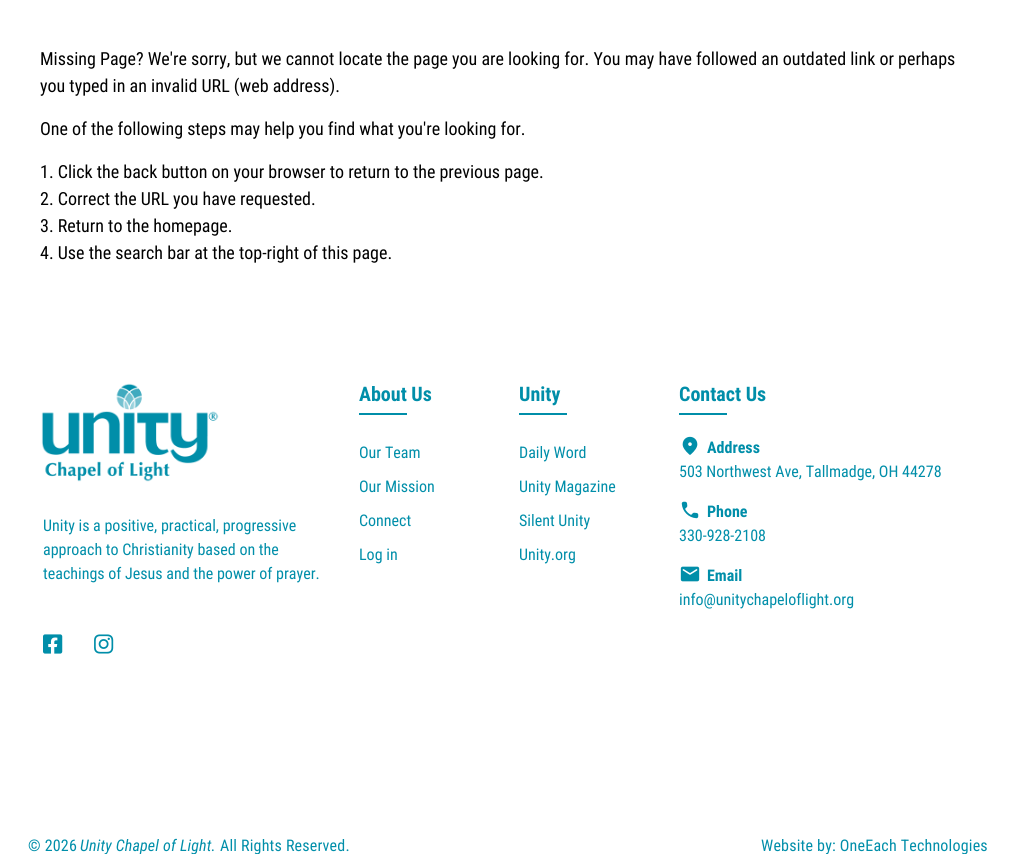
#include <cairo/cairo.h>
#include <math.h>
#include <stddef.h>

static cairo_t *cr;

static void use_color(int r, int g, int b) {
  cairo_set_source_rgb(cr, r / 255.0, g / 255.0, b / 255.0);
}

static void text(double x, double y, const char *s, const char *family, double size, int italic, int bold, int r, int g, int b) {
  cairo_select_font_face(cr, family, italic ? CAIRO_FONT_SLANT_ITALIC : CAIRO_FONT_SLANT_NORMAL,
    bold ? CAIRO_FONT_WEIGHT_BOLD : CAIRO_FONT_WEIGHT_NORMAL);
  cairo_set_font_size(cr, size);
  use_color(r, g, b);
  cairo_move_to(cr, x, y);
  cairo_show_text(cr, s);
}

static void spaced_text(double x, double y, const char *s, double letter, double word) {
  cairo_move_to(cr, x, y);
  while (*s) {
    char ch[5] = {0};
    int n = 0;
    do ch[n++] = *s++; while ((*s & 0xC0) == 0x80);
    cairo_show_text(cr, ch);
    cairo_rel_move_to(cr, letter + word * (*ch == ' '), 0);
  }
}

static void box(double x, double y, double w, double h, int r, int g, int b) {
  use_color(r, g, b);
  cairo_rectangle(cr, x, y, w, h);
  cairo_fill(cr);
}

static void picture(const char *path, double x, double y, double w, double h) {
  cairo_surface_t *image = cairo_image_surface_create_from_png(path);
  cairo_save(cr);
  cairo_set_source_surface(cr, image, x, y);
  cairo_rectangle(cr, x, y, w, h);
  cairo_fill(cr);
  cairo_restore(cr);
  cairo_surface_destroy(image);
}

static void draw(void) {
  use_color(255, 255, 255);
  cairo_paint(cr);
  picture("img_01.png", 41, 383, 178, 99);
  picture("img_02.png", 43, 634, 20, 20);
  picture("img_03.png", 94, 634, 20, 20);
  box(359, 413, 48, 2, 0, 142, 169);
  box(519, 413, 48, 2, 0, 142, 169);
  box(679, 413, 48, 2, 0, 142, 169);
  picture("img_04.png", 682, 436, 16, 19);
  picture("img_05.png", 681, 501, 18, 18);
  picture("img_06.png", 680, 566, 20, 16);
  text(40, 65, "Missing Page? We're sorry, but we cannot locate the page you are looking for. You may have followed an outdated link or perhaps", "Roboto Condensed", 18, 0, 0, 0, 0, 0);
  text(40, 92, "you typed in an invalid URL (web address).", "Roboto Condensed", 18, 0, 0, 0, 0, 0);
  text(40, 135, "One of the following steps may help you find what you're looking for.", "Roboto Condensed", 18, 0, 0, 0, 0, 0);
  text(40, 178, "1. Click the back button on your browser to return to the previous page.", "Roboto Condensed", 18, 0, 0, 0, 0, 0);
  text(40, 205, "2. Correct the URL you have requested.", "Roboto Condensed", 18, 0, 0, 0, 0, 0);
  text(40, 232, "3. Return to the homepage.", "Roboto Condensed", 18, 0, 0, 0, 0, 0);
  text(40, 259, "4. Use the search bar at the top-right of this page.", "Roboto Condensed", 18, 0, 0, 0, 0, 0);
  text(43, 531, "Unity is a positive, practical, progressive", "Roboto Condensed", 16, 0, 0, 0, 142, 169);
  text(43, 555, "approach to Christianity based on the", "Roboto Condensed", 16, 0, 0, 0, 142, 169);
  text(43, 579, "teachings of Jesus and the power of prayer.", "Roboto Condensed", 16, 0, 0, 0, 142, 169);
  text(359, 401, "About Us", "Roboto Condensed", 20, 0, 1, 0, 142, 169);
  text(359, 458, "Our Team", "Roboto Condensed", 16, 0, 0, 0, 142, 169);
  text(359, 492, "Our Mission", "Roboto Condensed", 16, 0, 0, 0, 142, 169);
  text(359, 526, "Connect", "Roboto Condensed", 16, 0, 0, 0, 142, 169);
  text(359, 560, "Log in", "Roboto Condensed", 16, 0, 0, 0, 142, 169);
  text(519, 401, "Unity", "Roboto Condensed", 20, 0, 1, 0, 142, 169);
  text(519, 458, "Daily Word", "Roboto Condensed", 16, 0, 0, 0, 142, 169);
  text(519, 492, "Unity Magazine", "Roboto Condensed", 16, 0, 0, 0, 142, 169);
  text(519, 526, "Silent Unity", "Roboto Condensed", 16, 0, 0, 0, 142, 169);
  text(519, 560, "Unity.org", "Roboto Condensed", 16, 0, 0, 0, 142, 169);
  text(679, 401, "Contact Us", "Roboto Condensed", 20, 0, 1, 0, 142, 169);
  text(707, 453, "Address", "Roboto Condensed", 16, 0, 1, 0, 142, 169);
  text(679, 477, "503 Northwest Ave, Tallmadge, OH 44278", "Roboto Condensed", 16, 0, 0, 0, 142, 169);
  text(707, 517, "Phone", "Roboto Condensed", 16, 0, 1, 0, 142, 169);
  text(679, 541, "330-928-2108", "Roboto Condensed", 16, 0, 0, 0, 142, 169);
  text(707, 581, "Email", "Roboto Condensed", 16, 0, 1, 0, 142, 169);
  text(679, 605, "info@unitychapeloflight.org", "Roboto Condensed", 16, 0, 0, 0, 142, 169);
  spaced_text(28, 851, "© 2026", 0.2, 0);
  cairo_select_font_face(cr, "Roboto Condensed", CAIRO_FONT_SLANT_ITALIC, CAIRO_FONT_WEIGHT_NORMAL);
  spaced_text(80, 851, "Unity Chapel of Light.", 0.2, 0);
  cairo_select_font_face(cr, "Roboto Condensed", CAIRO_FONT_SLANT_NORMAL, CAIRO_FONT_WEIGHT_NORMAL);
  spaced_text(220, 851, "All Rights Reserved.", 0.2, 0);
  spaced_text(761, 851, "Website by: OneEach Technologies", 0.2, 0);
}

int main(void) {
  cairo_surface_t *surface = cairo_image_surface_create(CAIRO_FORMAT_RGB24, 1015, 854);
  cr = cairo_create(surface);
  cairo_font_options_t *options = cairo_font_options_create();
  cairo_font_options_set_hint_metrics(options, CAIRO_HINT_METRICS_OFF);
  cairo_font_options_set_hint_style(options, CAIRO_HINT_STYLE_NONE);
  cairo_set_font_options(cr, options);
  cairo_set_miter_limit(cr, 4);
  draw();
  cairo_surface_write_to_png(surface, "out.png");
  cairo_font_options_destroy(options);
  cairo_destroy(cr);
  cairo_surface_destroy(surface);
  return 0;
}
